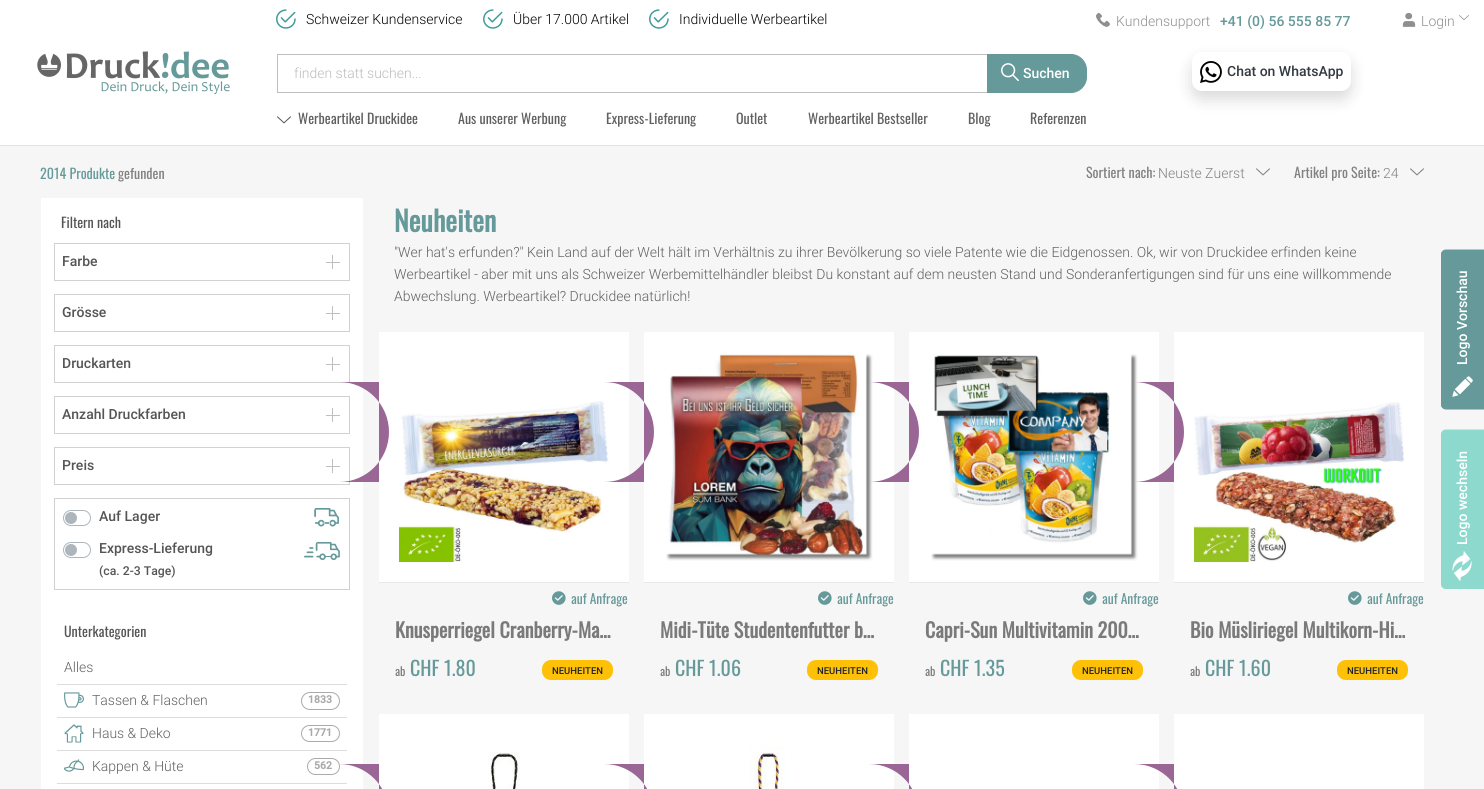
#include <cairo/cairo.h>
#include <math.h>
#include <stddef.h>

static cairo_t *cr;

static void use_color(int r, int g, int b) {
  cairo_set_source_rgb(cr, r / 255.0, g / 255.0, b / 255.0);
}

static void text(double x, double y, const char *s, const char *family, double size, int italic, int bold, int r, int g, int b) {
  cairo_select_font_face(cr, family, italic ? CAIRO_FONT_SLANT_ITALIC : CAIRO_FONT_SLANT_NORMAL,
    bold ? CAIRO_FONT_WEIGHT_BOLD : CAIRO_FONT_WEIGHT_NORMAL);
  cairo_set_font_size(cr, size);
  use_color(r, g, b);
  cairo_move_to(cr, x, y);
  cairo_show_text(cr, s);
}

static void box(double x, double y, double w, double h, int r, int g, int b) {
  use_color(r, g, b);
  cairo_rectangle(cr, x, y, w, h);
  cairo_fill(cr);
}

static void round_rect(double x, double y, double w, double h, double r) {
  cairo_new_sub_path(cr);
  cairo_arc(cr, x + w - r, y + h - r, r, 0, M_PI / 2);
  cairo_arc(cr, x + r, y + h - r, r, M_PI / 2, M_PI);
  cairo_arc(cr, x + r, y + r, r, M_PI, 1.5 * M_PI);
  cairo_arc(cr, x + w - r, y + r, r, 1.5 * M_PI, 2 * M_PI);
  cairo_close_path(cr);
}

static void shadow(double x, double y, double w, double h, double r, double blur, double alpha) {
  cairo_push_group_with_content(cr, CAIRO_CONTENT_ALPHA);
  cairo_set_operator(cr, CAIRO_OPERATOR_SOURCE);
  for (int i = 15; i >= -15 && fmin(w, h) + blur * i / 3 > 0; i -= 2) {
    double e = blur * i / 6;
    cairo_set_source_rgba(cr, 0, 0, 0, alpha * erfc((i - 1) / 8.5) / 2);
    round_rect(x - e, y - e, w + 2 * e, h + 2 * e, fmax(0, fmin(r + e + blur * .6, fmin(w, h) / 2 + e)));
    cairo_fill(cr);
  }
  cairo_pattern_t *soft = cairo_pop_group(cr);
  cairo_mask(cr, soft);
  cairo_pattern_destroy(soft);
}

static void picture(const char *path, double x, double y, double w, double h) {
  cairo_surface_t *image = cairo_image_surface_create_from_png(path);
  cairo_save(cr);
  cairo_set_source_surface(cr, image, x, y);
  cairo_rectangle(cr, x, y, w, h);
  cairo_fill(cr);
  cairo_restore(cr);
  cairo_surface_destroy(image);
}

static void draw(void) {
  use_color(246, 246, 246);
  cairo_paint(cr);
  box(0, 0, 1484, 145, 255, 255, 255);
  box(0, 145, 1484, 1, 226, 226, 226);
  picture("img_01.png", 276, 9, 20, 20);
  picture("img_01.png", 483, 9, 20, 20);
  picture("img_01.png", 649, 9, 20, 20);
  picture("img_02.png", 37, 51, 193, 44);
  cairo_rectangle(cr, 277.5, 54.5, 710, 38);
  use_color(191, 191, 191);
  cairo_set_line_width(cr, 1);
  cairo_stroke(cr);
  use_color(102, 153, 153);
  cairo_new_path(cr);
  cairo_move_to(cr, 987.5, 54.5);
  cairo_line_to(cr, 1071, 54.5);
  cairo_curve_to(cr, 1079.5, 54.5, 1086.5, 61.5, 1086.5, 70);
  cairo_line_to(cr, 1086.5, 77);
  cairo_curve_to(cr, 1086.5, 85.5, 1079.5, 92.5, 1071, 92.5);
  cairo_line_to(cr, 987.5, 92.5);
  cairo_close_path(cr);
  cairo_fill_preserve(cr);
  cairo_stroke(cr);
  picture("img_03.png", 1001, 63, 18, 19);
  picture("img_04.png", 277, 116, 14, 8);
  picture("img_05.png", 1096, 12, 14, 15);
  picture("img_06.png", 1402, 12, 14, 15);
  picture("img_07.png", 1459, 15, 10, 5);
  use_color(0, 0, 0);
  shadow(1192, 60, 159, 39, 10, 8, 0.15);
  use_color(255, 255, 255);
  round_rect(1192, 52, 159, 39, 10);
  cairo_fill(cr);
  picture("img_08.png", 1200, 61, 22, 22);
  picture("img_09.png", 1256, 168, 14, 8);
  picture("img_09.png", 1410, 168, 14, 8);
  box(41, 198, 322, 591, 255, 255, 255);
  cairo_rectangle(cr, 54.5, 243.5, 295, 37);
  use_color(210, 210, 210);
  cairo_stroke(cr);
  box(326, 262, 14, 1, 191, 191, 191);
  box(332, 255, 1, 14, 191, 191, 191);
  cairo_rectangle(cr, 54.5, 294.5, 295, 37);
  use_color(210, 210, 210);
  cairo_stroke(cr);
  box(326, 313, 14, 1, 191, 191, 191);
  box(332, 306, 1, 14, 191, 191, 191);
  cairo_rectangle(cr, 54.5, 345.5, 295, 37);
  use_color(210, 210, 210);
  cairo_stroke(cr);
  box(326, 364, 14, 1, 191, 191, 191);
  box(332, 357, 1, 14, 191, 191, 191);
  cairo_rectangle(cr, 54.5, 396.5, 295, 37);
  use_color(210, 210, 210);
  cairo_stroke(cr);
  box(326, 415, 14, 1, 191, 191, 191);
  box(332, 408, 1, 14, 191, 191, 191);
  cairo_rectangle(cr, 54.5, 447.5, 295, 37);
  use_color(210, 210, 210);
  cairo_stroke(cr);
  box(326, 466, 14, 1, 191, 191, 191);
  box(332, 459, 1, 14, 191, 191, 191);
  cairo_rectangle(cr, 54.5, 498.5, 295, 91);
  use_color(210, 210, 210);
  cairo_stroke(cr);
  round_rect(63.5, 510.5, 27, 15, 7.5);
  use_color(173, 181, 189);
  cairo_stroke(cr);
  cairo_arc(cr, 71, 518, 6, 0, 2 * M_PI);
  cairo_fill(cr);
  picture("img_10.png", 314, 508, 25, 19);
  round_rect(63.5, 542.5, 27, 15, 7.5);
  cairo_stroke(cr);
  cairo_arc(cr, 71, 550, 6, 0, 2 * M_PI);
  cairo_fill(cr);
  picture("img_11.png", 304, 542, 36, 18);
  box(57, 684, 290, 1, 221, 221, 221);
  box(57, 717, 290, 1, 221, 221, 221);
  picture("img_12.png", 64, 692, 20, 16);
  round_rect(301.5, 692.5, 38, 17, 8.5);
  use_color(170, 170, 170);
  cairo_stroke(cr);
  box(57, 750, 290, 1, 221, 221, 221);
  picture("img_13.png", 64, 724, 20, 19);
  round_rect(301.5, 725.5, 38, 16, 8);
  use_color(170, 170, 170);
  cairo_stroke(cr);
  box(57, 783, 290, 1, 221, 221, 221);
  picture("img_14.png", 64, 759, 20, 13);
  round_rect(307.5, 758.5, 32, 16, 8);
  use_color(170, 170, 170);
  cairo_stroke(cr);
  use_color(102, 153, 153);
  cairo_new_path(cr);
  cairo_move_to(cr, 1441, 404);
  cairo_line_to(cr, 1441, 255);
  cairo_curve_to(cr, 1441, 252, 1443, 250, 1446, 250);
  cairo_line_to(cr, 1484, 250);
  cairo_line_to(cr, 1484, 409);
  cairo_line_to(cr, 1446, 409);
  cairo_curve_to(cr, 1443, 409, 1441, 407, 1441, 404);
  cairo_close_path(cr);
  cairo_fill(cr);
  cairo_new_path(cr);
  cairo_move_to(cr, 1441.5, 404.5);
  cairo_line_to(cr, 1441.5, 254.5);
  cairo_curve_to(cr, 1441.5, 252, 1443.5, 250, 1446, 250);
  cairo_line_to(cr, 1483.5, 250);
  cairo_line_to(cr, 1483.5, 409);
  cairo_line_to(cr, 1446, 409);
  cairo_curve_to(cr, 1443.5, 409, 1441.5, 407, 1441.5, 404.5);
  cairo_close_path(cr);
  cairo_stroke(cr);
  picture("img_15.png", 1452, 376, 21, 21);
  use_color(142, 217, 206);
  cairo_new_path(cr);
  cairo_move_to(cr, 1441, 584);
  cairo_line_to(cr, 1441, 435);
  cairo_curve_to(cr, 1441, 432, 1443, 430, 1446, 430);
  cairo_line_to(cr, 1484, 430);
  cairo_line_to(cr, 1484, 589);
  cairo_line_to(cr, 1446, 589);
  cairo_curve_to(cr, 1443, 589, 1441, 587, 1441, 584);
  cairo_close_path(cr);
  cairo_fill(cr);
  cairo_new_path(cr);
  cairo_move_to(cr, 1441.5, 583.5);
  cairo_line_to(cr, 1441.5, 434.5);
  cairo_curve_to(cr, 1441.5, 432, 1443.5, 430, 1446, 430);
  cairo_line_to(cr, 1483.5, 430);
  cairo_line_to(cr, 1483.5, 588);
  cairo_line_to(cr, 1446, 588);
  cairo_curve_to(cr, 1443.5, 588, 1441.5, 586, 1441.5, 583.5);
  cairo_close_path(cr);
  cairo_stroke(cr);
  picture("img_16.png", 1452, 551, 20, 30);
  box(379, 332, 250, 250, 255, 255, 255);
  use_color(154, 102, 150);
  cairo_new_path(cr);
  cairo_move_to(cr, 379, 382);
  cairo_line_to(cr, 339, 382);
  cairo_curve_to(cr, 366.5, 382, 389, 404.5, 389, 432);
  cairo_curve_to(cr, 389, 459.5, 366.5, 482, 339, 482);
  cairo_line_to(cr, 379, 482);
  cairo_close_path(cr);
  cairo_fill(cr);
  box(379, 582, 250, 1, 232, 232, 232);
  picture("img_17.png", 399, 401, 210, 161);
  picture("img_18.png", 552, 591, 14, 14);
  use_color(255, 193, 7);
  round_rect(542, 660, 71, 20, 9);
  cairo_fill(cr);
  box(644, 332, 250, 250, 255, 255, 255);
  use_color(154, 102, 150);
  cairo_new_path(cr);
  cairo_move_to(cr, 644, 382);
  cairo_line_to(cr, 604, 382);
  cairo_curve_to(cr, 631.5, 382, 654, 404.5, 654, 432);
  cairo_curve_to(cr, 654, 459.5, 631.5, 482, 604, 482);
  cairo_line_to(cr, 644, 482);
  cairo_close_path(cr);
  cairo_fill(cr);
  box(644, 582, 250, 1, 232, 232, 232);
  picture("img_19.png", 666, 354, 207, 207);
  picture("img_18.png", 818, 591, 14, 14);
  use_color(255, 193, 7);
  round_rect(807, 660, 71, 20, 9);
  cairo_fill(cr);
  box(909, 332, 250, 250, 255, 255, 255);
  use_color(154, 102, 150);
  cairo_new_path(cr);
  cairo_move_to(cr, 909, 382);
  cairo_line_to(cr, 869, 382);
  cairo_curve_to(cr, 896.5, 382, 919, 404.5, 919, 432);
  cairo_curve_to(cr, 919, 459.5, 896.5, 482, 869, 482);
  cairo_line_to(cr, 909, 482);
  cairo_close_path(cr);
  cairo_fill(cr);
  box(909, 582, 250, 1, 232, 232, 232);
  picture("img_20.png", 931, 354, 207, 207);
  picture("img_18.png", 1083, 591, 14, 14);
  use_color(255, 193, 7);
  round_rect(1072, 660, 71, 20, 9);
  cairo_fill(cr);
  box(1174, 332, 250, 250, 255, 255, 255);
  use_color(154, 102, 150);
  cairo_new_path(cr);
  cairo_move_to(cr, 1174, 382);
  cairo_line_to(cr, 1134, 382);
  cairo_curve_to(cr, 1161.5, 382, 1184, 404.5, 1184, 432);
  cairo_curve_to(cr, 1184, 459.5, 1161.5, 482, 1134, 482);
  cairo_line_to(cr, 1174, 482);
  cairo_close_path(cr);
  cairo_fill(cr);
  box(1174, 582, 250, 1, 232, 232, 232);
  picture("img_21.png", 1194, 402, 210, 160);
  picture("img_18.png", 1348, 591, 14, 14);
  use_color(255, 193, 7);
  round_rect(1337, 660, 71, 20, 9);
  cairo_fill(cr);
  box(379, 714, 250, 75, 255, 255, 255);
  use_color(154, 102, 150);
  cairo_new_path(cr);
  cairo_move_to(cr, 379, 764);
  cairo_line_to(cr, 339, 764);
  cairo_curve_to(cr, 366.5, 764, 389, 786.5, 389, 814);
  cairo_line_to(cr, 389, 789);
  cairo_curve_to(cr, 389, 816.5, 366.5, 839, 339, 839);
  cairo_line_to(cr, 379, 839);
  cairo_close_path(cr);
  cairo_fill(cr);
  picture("img_22.png", 490, 752, 30, 37);
  box(644, 714, 250, 75, 255, 255, 255);
  use_color(154, 102, 150);
  cairo_new_path(cr);
  cairo_move_to(cr, 644, 764);
  cairo_line_to(cr, 604, 764);
  cairo_curve_to(cr, 631.5, 764, 654, 786.5, 654, 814);
  cairo_line_to(cr, 654, 789);
  cairo_curve_to(cr, 654, 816.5, 631.5, 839, 604, 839);
  cairo_line_to(cr, 644, 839);
  cairo_close_path(cr);
  cairo_fill(cr);
  picture("img_23.png", 749, 746, 36, 43);
  box(909, 714, 250, 75, 255, 255, 255);
  use_color(154, 102, 150);
  cairo_new_path(cr);
  cairo_move_to(cr, 909, 764);
  cairo_line_to(cr, 869, 764);
  cairo_curve_to(cr, 896.5, 764, 919, 786.5, 919, 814);
  cairo_line_to(cr, 919, 789);
  cairo_curve_to(cr, 919, 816.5, 896.5, 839, 869, 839);
  cairo_line_to(cr, 909, 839);
  cairo_close_path(cr);
  cairo_fill(cr);
  box(1174, 714, 250, 75, 255, 255, 255);
  use_color(154, 102, 150);
  cairo_new_path(cr);
  cairo_move_to(cr, 1174, 764);
  cairo_line_to(cr, 1134, 764);
  cairo_curve_to(cr, 1161.5, 764, 1184, 786.5, 1184, 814);
  cairo_line_to(cr, 1184, 789);
  cairo_curve_to(cr, 1184, 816.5, 1161.5, 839, 1134, 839);
  cairo_line_to(cr, 1174, 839);
  cairo_close_path(cr);
  cairo_fill(cr);
  text(306, 24, "Schweizer Kundenservice", "Roboto Light", 14, 0, 0, 0, 0, 0);
  text(513, 24, "Über 17.000 Artikel", "Roboto Light", 14, 0, 0, 0, 0, 0);
  text(679, 24, "Individuelle Werbeartikel", "Roboto Light", 14, 0, 0, 0, 0, 0);
  text(294, 78, "finden statt suchen...", "Roboto Light", 14, 0, 0, 187, 187, 187);
  text(1023, 78, "Suchen", "Roboto Medium", 14, 0, 0, 255, 255, 255);
  text(298, 124, "Werbeartikel Druckidee", "Oswald", 14, 0, 0, 96, 96, 96);
  text(458, 124, "Aus unserer Werbung", "Oswald", 14, 0, 0, 96, 96, 96);
  text(606, 124, "Express-Lieferung", "Oswald", 14, 0, 0, 96, 96, 96);
  text(736, 124, "Outlet", "Oswald", 14, 0, 0, 96, 96, 96);
  text(808, 124, "Werbeartikel Bestseller", "Oswald", 14, 0, 0, 96, 96, 96);
  text(968, 124, "Blog", "Oswald", 14, 0, 0, 96, 96, 96);
  text(1030, 124, "Referenzen", "Oswald", 14, 0, 0, 96, 96, 96);
  text(1116, 26, "Kundensupport", "Roboto Light", 14, 0, 0, 143, 143, 143);
  text(1220, 26, "+41 (0) 56 555 85 77", "Roboto Medium", 14, 0, 0, 102, 153, 153);
  text(1421, 26, "Login", "Roboto Light", 14, 0, 0, 143, 143, 143);
  text(1227, 76, "Chat on WhatsApp", "Roboto Medium", 14, 0, 0, 52, 58, 64);
  text(40, 179, "2014 Produkte", "Oswald", 14, 0, 0, 102, 153, 153);
  text(118, 179, "gefunden", "Oswald", 14, 0, 0, 129, 129, 129);
  text(1086, 178, "Sortiert nach:", "Oswald", 14, 0, 0, 129, 129, 129);
  text(1158, 178, "Neuste Zuerst", "Roboto Light", 14, 0, 0, 129, 129, 129);
  text(1294, 178, "Artikel pro Seite:", "Oswald", 14, 0, 0, 129, 129, 129);
  text(1383, 178, "24", "Roboto Light", 14, 0, 0, 129, 129, 129);
  text(61, 228, "Filtern nach", "Oswald", 14, 0, 0, 85, 85, 85);
  text(62, 266, "Farbe", "Roboto Medium", 14, 0, 0, 85, 85, 85);
  text(62, 317, "Grösse", "Roboto Medium", 14, 0, 0, 85, 85, 85);
  text(62, 368, "Druckarten", "Roboto Medium", 14, 0, 0, 85, 85, 85);
  text(62, 419, "Anzahl Druckfarben", "Roboto Medium", 14, 0, 0, 85, 85, 85);
  text(62, 470, "Preis", "Roboto Medium", 14, 0, 0, 85, 85, 85);
  text(99, 521, "Auf Lager", "Roboto Medium", 14, 0, 0, 85, 85, 85);
  text(99, 553, "Express-Lieferung", "Roboto Medium", 14, 0, 0, 85, 85, 85);
  text(99, 575, "(ca. 2-3 Tage)", "Roboto Medium", 12.25, 0, 0, 85, 85, 85);
  text(64, 637, "Unterkategorien", "Oswald", 14, 0, 0, 85, 85, 85);
  text(64, 672, "Alles", "Roboto Light", 14, 0, 0, 96, 96, 96);
  text(92, 705, "Tassen & Flaschen", "Roboto Light", 14, 0, 0, 96, 96, 96);
  text(308, 703, "1833", "Roboto", 10.5, 0, 1, 170, 170, 170);
  text(92, 738, "Haus & Deko", "Roboto Light", 14, 0, 0, 96, 96, 96);
  text(308, 736, "1771", "Roboto", 10.5, 0, 1, 170, 170, 170);
  text(92, 771, "Kappen & Hüte", "Roboto Light", 14, 0, 0, 96, 96, 96);
  text(314, 769, "562", "Roboto", 10.5, 0, 1, 170, 170, 170);
  text(394, 232, "Neuheiten", "Oswald", 28, 0, 1, 102, 153, 153);
  text(394, 257, "\"Wer hat's erfunden?\" Kein Land auf der Welt hält im Verhältnis zu ihrer Bevölkerung so viele Patente wie die Eidgenossen. Ok, wir von Druckidee erfinden keine", "Roboto Light", 14, 0, 0, 96, 96, 96);
  text(394, 279, "Werbeartikel - aber mit uns als Schweizer Werbemittelhändler bleibst Du konstant auf dem neusten Stand und Sonderanfertigungen sind für uns eine willkommende", "Roboto Light", 14, 0, 0, 96, 96, 96);
  text(394, 301, "Abwechslung. Werbeartikel? Druckidee natürlich!", "Roboto Light", 14, 0, 0, 96, 96, 96);
  cairo_save(cr);
  cairo_translate(cr, 1467, 365);
  cairo_rotate(cr, -90 * M_PI / 180);
  text(0, 0, "Logo Vorschau", "Roboto Medium", 14, 0, 0, 255, 255, 255);
  cairo_restore(cr);
  cairo_save(cr);
  cairo_translate(cr, 1467, 545);
  cairo_rotate(cr, -90 * M_PI / 180);
  text(0, 0, "Logo wechseln", "Roboto Medium", 14, 0, 0, 255, 255, 255);
  cairo_restore(cr);
  text(571, 604, "auf Anfrage", "Oswald", 13.5, 0, 0, 102, 153, 153);
  text(395, 638, "Knusperriegel Cranberry-Ma…", "Oswald", 20, 0, 1, 122, 122, 122);
  text(395, 676, "ab", "Oswald", 12, 0, 0, 122, 122, 122);
  text(410, 676, "CHF 1.80", "Oswald", 20, 0, 0, 102, 153, 153);
  text(552, 674, "NEUHEITEN", "Roboto Medium", 9.5, 0, 0, 33, 37, 41);
  text(837, 604, "auf Anfrage", "Oswald", 13.5, 0, 0, 102, 153, 153);
  text(660, 638, "Midi-Tüte Studentenfutter b…", "Oswald", 20, 0, 1, 122, 122, 122);
  text(660, 676, "ab", "Oswald", 12, 0, 0, 122, 122, 122);
  text(675, 676, "CHF 1.06", "Oswald", 20, 0, 0, 102, 153, 153);
  text(817, 674, "NEUHEITEN", "Roboto Medium", 9.5, 0, 0, 33, 37, 41);
  text(1102, 604, "auf Anfrage", "Oswald", 13.5, 0, 0, 102, 153, 153);
  text(925, 638, "Capri-Sun Multivitamin 200…", "Oswald", 20, 0, 1, 122, 122, 122);
  text(925, 676, "ab", "Oswald", 12, 0, 0, 122, 122, 122);
  text(940, 676, "CHF 1.35", "Oswald", 20, 0, 0, 102, 153, 153);
  text(1082, 674, "NEUHEITEN", "Roboto Medium", 9.5, 0, 0, 33, 37, 41);
  text(1367, 604, "auf Anfrage", "Oswald", 13.5, 0, 0, 102, 153, 153);
  text(1190, 638, "Bio Müsliriegel Multikorn-Hi…", "Oswald", 20, 0, 1, 122, 122, 122);
  text(1190, 676, "ab", "Oswald", 12, 0, 0, 122, 122, 122);
  text(1205, 676, "CHF 1.60", "Oswald", 20, 0, 0, 102, 153, 153);
  text(1347, 674, "NEUHEITEN", "Roboto Medium", 9.5, 0, 0, 33, 37, 41);
}

int main(void) {
  cairo_surface_t *surface = cairo_image_surface_create(CAIRO_FORMAT_RGB24, 1484, 789);
  cr = cairo_create(surface);
  cairo_font_options_t *options = cairo_font_options_create();
  cairo_font_options_set_hint_metrics(options, CAIRO_HINT_METRICS_OFF);
  cairo_font_options_set_hint_style(options, CAIRO_HINT_STYLE_NONE);
  cairo_set_font_options(cr, options);
  cairo_set_miter_limit(cr, 4);
  draw();
  cairo_surface_write_to_png(surface, "out.png");
  cairo_font_options_destroy(options);
  cairo_destroy(cr);
  cairo_surface_destroy(surface);
  return 0;
}
